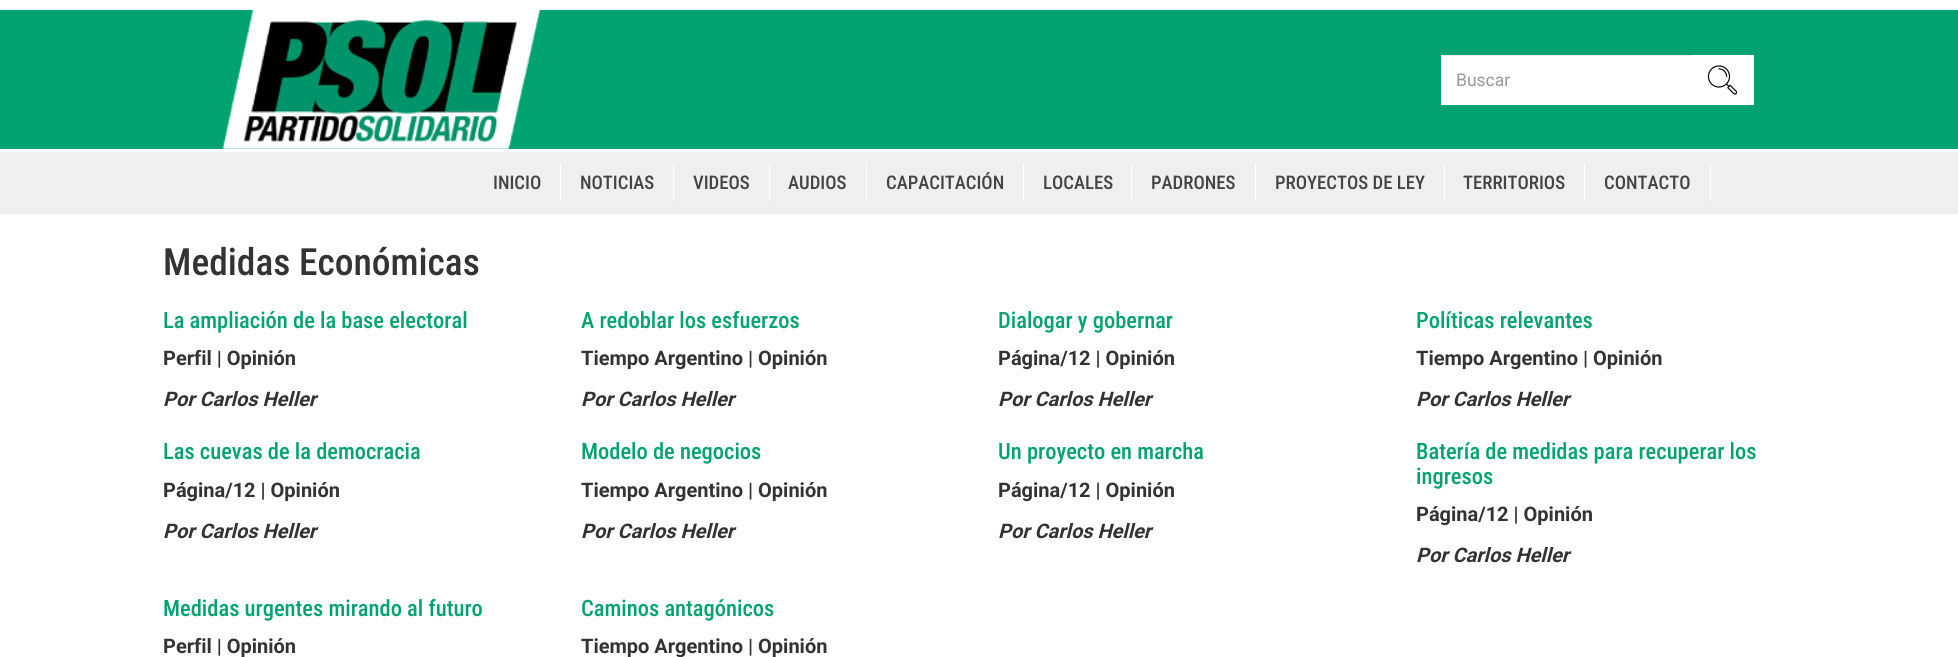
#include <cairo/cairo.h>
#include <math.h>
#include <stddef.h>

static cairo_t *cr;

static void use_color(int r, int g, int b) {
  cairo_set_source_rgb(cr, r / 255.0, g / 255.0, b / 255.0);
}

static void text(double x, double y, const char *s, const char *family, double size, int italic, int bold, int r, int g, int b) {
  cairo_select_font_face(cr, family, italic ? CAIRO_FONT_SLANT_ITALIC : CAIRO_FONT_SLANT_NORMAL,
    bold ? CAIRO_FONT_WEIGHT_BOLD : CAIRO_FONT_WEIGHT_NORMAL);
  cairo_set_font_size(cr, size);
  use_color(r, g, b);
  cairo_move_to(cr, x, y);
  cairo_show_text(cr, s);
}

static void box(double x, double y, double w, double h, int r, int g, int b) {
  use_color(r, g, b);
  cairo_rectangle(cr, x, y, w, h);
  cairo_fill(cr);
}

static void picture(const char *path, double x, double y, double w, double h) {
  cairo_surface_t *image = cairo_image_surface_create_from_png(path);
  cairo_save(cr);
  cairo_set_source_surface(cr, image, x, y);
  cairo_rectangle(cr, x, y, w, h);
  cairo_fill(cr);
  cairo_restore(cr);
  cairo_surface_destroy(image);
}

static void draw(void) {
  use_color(255, 255, 255);
  cairo_paint(cr);
  box(0, 10, 1958, 139, 0, 162, 112);
  picture("img_01.png", 222, 10, 319, 139);
  box(1441, 56, 250, 49, 255, 255, 255);
  box(1441, 55, 252, 1, 236, 236, 236);
  box(1691, 55, 63, 50, 255, 255, 255);
  picture("img_02.png", 1707, 65, 31, 30);
  box(0, 152, 1958, 62, 239, 239, 239);
  box(560, 164, 1, 37, 255, 255, 255);
  box(673, 164, 1, 37, 255, 255, 255);
  box(769, 164, 1, 37, 255, 255, 255);
  box(866, 164, 1, 37, 255, 255, 255);
  box(1023, 164, 1, 37, 255, 255, 255);
  box(1131, 164, 1, 37, 255, 255, 255);
  box(1255, 164, 1, 37, 255, 255, 255);
  box(1444, 164, 1, 37, 255, 255, 255);
  box(1584, 164, 1, 37, 255, 255, 255);
  box(1710, 164, 1, 37, 255, 255, 255);
  text(1456, 86, "Buscar", "Roboto", 17.5, 0, 0, 153, 153, 153);
  text(493, 189, "INICIO", "Roboto Condensed Medium", 18.75, 0, 0, 68, 68, 68);
  text(580, 189, "NOTICIAS", "Roboto Condensed Medium", 18.75, 0, 0, 68, 68, 68);
  text(693, 189, "VIDEOS", "Roboto Condensed Medium", 18.75, 0, 0, 68, 68, 68);
  text(788, 189, "AUDIOS", "Roboto Condensed Medium", 18.75, 0, 0, 68, 68, 68);
  text(886, 189, "CAPACITACIÓN", "Roboto Condensed Medium", 18.75, 0, 0, 68, 68, 68);
  text(1043, 189, "LOCALES", "Roboto Condensed Medium", 18.75, 0, 0, 68, 68, 68);
  text(1151, 189, "PADRONES", "Roboto Condensed Medium", 18.75, 0, 0, 68, 68, 68);
  text(1275, 189, "PROYECTOS DE LEY", "Roboto Condensed Medium", 18.75, 0, 0, 68, 68, 68);
  text(1463, 189, "TERRITORIOS", "Roboto Condensed Medium", 18.75, 0, 0, 68, 68, 68);
  text(1604, 189, "CONTACTO", "Roboto Condensed Medium", 18.75, 0, 0, 68, 68, 68);
  text(163, 275, "Medidas Económicas", "Roboto Condensed Medium", 37.5, 0, 0, 51, 51, 51);
  text(163, 328, "La ampliación de la base electoral", "Roboto Condensed Medium", 22.5, 0, 0, 0, 162, 112);
  text(163, 365, "Perfil | Opinión", "Roboto", 20, 0, 1, 51, 51, 51);
  text(163, 406, "Por Carlos Heller", "Roboto", 20, 1, 1, 51, 51, 51);
  text(581, 328, "A redoblar los esfuerzos", "Roboto Condensed Medium", 22.5, 0, 0, 0, 162, 112);
  text(581, 365, "Tiempo Argentino | Opinión", "Roboto", 20, 0, 1, 51, 51, 51);
  text(581, 406, "Por Carlos Heller", "Roboto", 20, 1, 1, 51, 51, 51);
  text(998, 328, "Dialogar y gobernar", "Roboto Condensed Medium", 22.5, 0, 0, 0, 162, 112);
  text(998, 365, "Página/12 | Opinión", "Roboto", 20, 0, 1, 51, 51, 51);
  text(998, 406, "Por Carlos Heller", "Roboto", 20, 1, 1, 51, 51, 51);
  text(1416, 328, "Políticas relevantes", "Roboto Condensed Medium", 22.5, 0, 0, 0, 162, 112);
  text(1416, 365, "Tiempo Argentino | Opinión", "Roboto", 20, 0, 1, 51, 51, 51);
  text(1416, 406, "Por Carlos Heller", "Roboto", 20, 1, 1, 51, 51, 51);
  text(163, 459, "Las cuevas de la democracia", "Roboto Condensed Medium", 22.5, 0, 0, 0, 162, 112);
  text(163, 497, "Página/12 | Opinión", "Roboto", 20, 0, 1, 51, 51, 51);
  text(163, 538, "Por Carlos Heller", "Roboto", 20, 1, 1, 51, 51, 51);
  text(581, 459, "Modelo de negocios", "Roboto Condensed Medium", 22.5, 0, 0, 0, 162, 112);
  text(581, 497, "Tiempo Argentino | Opinión", "Roboto", 20, 0, 1, 51, 51, 51);
  text(581, 538, "Por Carlos Heller", "Roboto", 20, 1, 1, 51, 51, 51);
  text(998, 459, "Un proyecto en marcha", "Roboto Condensed Medium", 22.5, 0, 0, 0, 162, 112);
  text(998, 497, "Página/12 | Opinión", "Roboto", 20, 0, 1, 51, 51, 51);
  text(998, 538, "Por Carlos Heller", "Roboto", 20, 1, 1, 51, 51, 51);
  text(1416, 459, "Batería de medidas para recuperar los", "Roboto Condensed Medium", 22.5, 0, 0, 0, 162, 112);
  text(1416, 484, "ingresos", "Roboto Condensed Medium", 22.5, 0, 0, 0, 162, 112);
  text(1416, 521, "Página/12 | Opinión", "Roboto", 20, 0, 1, 51, 51, 51);
  text(1416, 562, "Por Carlos Heller", "Roboto", 20, 1, 1, 51, 51, 51);
  text(163, 616, "Medidas urgentes mirando al futuro", "Roboto Condensed Medium", 22.5, 0, 0, 0, 162, 112);
  text(163, 653, "Perfil | Opinión", "Roboto", 20, 0, 1, 51, 51, 51);
  text(581, 616, "Caminos antagónicos", "Roboto Condensed Medium", 22.5, 0, 0, 0, 162, 112);
  text(581, 653, "Tiempo Argentino | Opinión", "Roboto", 20, 0, 1, 51, 51, 51);
}

int main(void) {
  cairo_surface_t *surface = cairo_image_surface_create(CAIRO_FORMAT_RGB24, 1958, 657);
  cr = cairo_create(surface);
  cairo_font_options_t *options = cairo_font_options_create();
  cairo_font_options_set_hint_metrics(options, CAIRO_HINT_METRICS_OFF);
  cairo_font_options_set_hint_style(options, CAIRO_HINT_STYLE_NONE);
  cairo_set_font_options(cr, options);
  cairo_set_miter_limit(cr, 4);
  draw();
  cairo_surface_write_to_png(surface, "out.png");
  cairo_font_options_destroy(options);
  cairo_destroy(cr);
  cairo_surface_destroy(surface);
  return 0;
}
